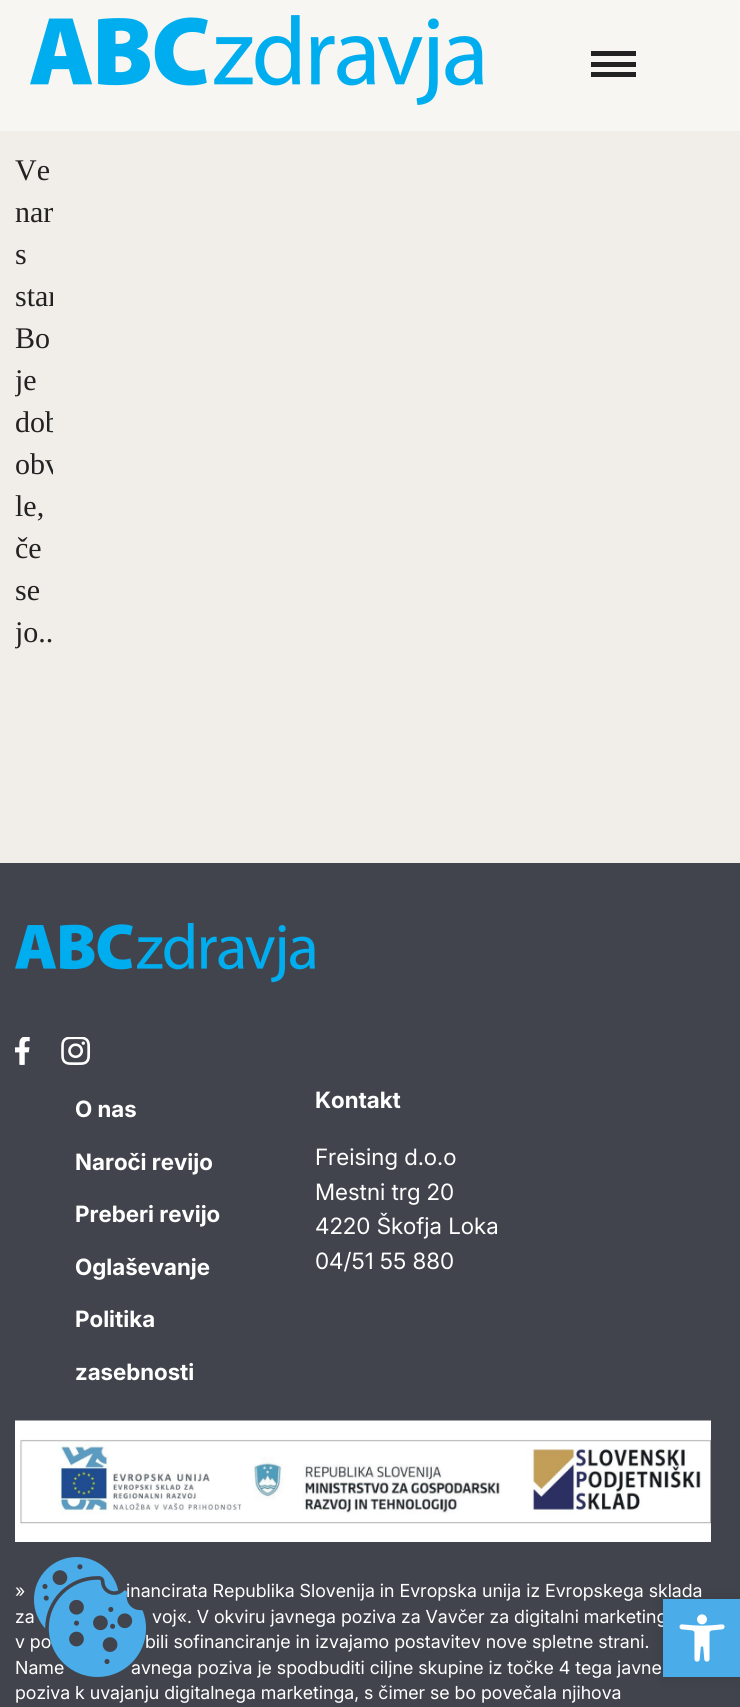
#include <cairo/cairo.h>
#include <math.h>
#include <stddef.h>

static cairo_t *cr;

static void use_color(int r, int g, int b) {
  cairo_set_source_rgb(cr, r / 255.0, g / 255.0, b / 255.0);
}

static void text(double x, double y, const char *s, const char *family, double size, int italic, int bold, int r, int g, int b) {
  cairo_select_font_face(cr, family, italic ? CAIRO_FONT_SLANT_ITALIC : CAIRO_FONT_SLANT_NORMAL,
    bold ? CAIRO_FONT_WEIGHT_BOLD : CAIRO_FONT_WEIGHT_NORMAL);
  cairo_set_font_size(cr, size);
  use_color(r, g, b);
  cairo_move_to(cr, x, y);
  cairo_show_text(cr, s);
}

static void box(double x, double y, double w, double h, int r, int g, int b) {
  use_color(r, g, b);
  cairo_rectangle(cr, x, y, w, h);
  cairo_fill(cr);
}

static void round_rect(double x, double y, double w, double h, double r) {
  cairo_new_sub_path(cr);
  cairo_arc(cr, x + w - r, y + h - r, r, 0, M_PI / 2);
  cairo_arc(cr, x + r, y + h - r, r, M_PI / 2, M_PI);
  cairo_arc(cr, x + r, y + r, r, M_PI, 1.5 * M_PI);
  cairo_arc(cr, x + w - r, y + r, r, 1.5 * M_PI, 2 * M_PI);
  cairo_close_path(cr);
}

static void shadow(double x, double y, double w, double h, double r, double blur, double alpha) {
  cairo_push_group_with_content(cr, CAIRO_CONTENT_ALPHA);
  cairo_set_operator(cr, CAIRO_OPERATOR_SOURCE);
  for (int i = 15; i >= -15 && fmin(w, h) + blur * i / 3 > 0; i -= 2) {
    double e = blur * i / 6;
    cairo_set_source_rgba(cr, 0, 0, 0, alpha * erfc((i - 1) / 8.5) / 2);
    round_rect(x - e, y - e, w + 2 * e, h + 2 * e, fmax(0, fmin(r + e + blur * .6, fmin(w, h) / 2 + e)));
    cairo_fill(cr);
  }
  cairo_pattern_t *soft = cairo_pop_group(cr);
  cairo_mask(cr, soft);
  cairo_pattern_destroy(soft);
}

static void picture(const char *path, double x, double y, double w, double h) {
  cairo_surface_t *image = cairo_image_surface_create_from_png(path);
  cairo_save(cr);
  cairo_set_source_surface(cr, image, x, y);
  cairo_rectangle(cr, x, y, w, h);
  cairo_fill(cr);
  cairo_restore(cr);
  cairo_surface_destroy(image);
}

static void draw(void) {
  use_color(241, 238, 233);
  cairo_paint(cr);
  box(0, 0, 740, 131, 247, 246, 242);
  picture("img_01.png", 30, 15, 453, 90);
  box(591, 51, 45, 5, 34, 34, 34);
  box(591, 62, 45, 5, 34, 34, 34);
  box(591, 72, 45, 5, 34, 34, 34);
  box(0, 863, 740, 844, 66, 68, 77);
  picture("img_02.png", 15, 923, 300, 60);
  picture("img_03.png", 15, 1037, 15, 28);
  picture("img_04.png", 61, 1037, 30, 28);
  picture("img_05.png", 15, 1420, 696, 122);
  use_color(0, 0, 0);
  shadow(663, 1599, 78, 78, 0, 7.5, 0.1);
  text(15, 180, "Ve", "Liberation Serif", 30, 0, 0, 34, 34, 34);
  text(15, 222, "nar", "Liberation Serif", 30, 0, 0, 34, 34, 34);
  text(15, 264, "s", "Liberation Serif", 30, 0, 0, 34, 34, 34);
  cairo_save(cr);
  cairo_rectangle(cr, 15, 0, 38, 683);
  cairo_clip(cr);
  text(15, 306, "star", "Liberation Serif", 30, 0, 0, 34, 34, 34);
  cairo_restore(cr);
  text(15, 348, "Bo", "Liberation Serif", 30, 0, 0, 34, 34, 34);
  cairo_save(cr);
  cairo_rectangle(cr, 15, 0, 38, 683);
  cairo_clip(cr);
  text(15, 390, "je", "Liberation Serif", 30, 0, 0, 34, 34, 34);
  text(15, 432, "dob", "Liberation Serif", 30, 0, 0, 34, 34, 34);
  text(15, 474, "obv", "Liberation Serif", 30, 0, 0, 34, 34, 34);
  cairo_restore(cr);
  text(15, 516, "le,", "Liberation Serif", 30, 0, 0, 34, 34, 34);
  text(15, 558, "če", "Liberation Serif", 30, 0, 0, 34, 34, 34);
  text(15, 600, "se", "Liberation Serif", 30, 0, 0, 34, 34, 34);
  cairo_save(cr);
  cairo_rectangle(cr, 15, 0, 38, 683);
  cairo_clip(cr);
  text(15, 642, "jo..", "Liberation Serif", 30, 0, 0, 34, 34, 34);
  cairo_restore(cr);
  text(75, 1117, "O nas", "Inter", 22.5, 0, 1, 255, 255, 255);
  text(75, 1170, "Naroči revijo", "Inter", 22.5, 0, 1, 255, 255, 255);
  text(75, 1222, "Preberi revijo", "Inter", 22.5, 0, 1, 255, 255, 255);
  text(75, 1275, "Oglaševanje", "Inter", 22.5, 0, 1, 255, 255, 255);
  text(75, 1327, "Politika", "Inter", 22.5, 0, 1, 255, 255, 255);
  text(75, 1380, "zasebnosti", "Inter", 22.5, 0, 1, 255, 255, 255);
  text(315, 1108, "Kontakt", "Inter", 22.5, 0, 1, 255, 255, 255);
  text(315, 1165, "Freising d.o.o", "Inter", 22.5, 0, 0, 255, 255, 255);
  text(315, 1200, "Mestni trg 20", "Inter", 22.5, 0, 0, 255, 255, 255);
  text(315, 1234, "4220 Škofja Loka", "Inter", 22.5, 0, 0, 255, 255, 255);
  text(315, 1269, "04/51 55 880", "Inter", 22.5, 0, 0, 255, 255, 255);
  text(15, 1597, "»", "Inter", 18, 0, 0, 255, 255, 255);
  text(126, 1597, "inancirata Republika Slovenija in Evropska unija iz Evropskega sklada", "Inter", 18, 0, 0, 255, 255, 255);
  text(15, 1623, "za", "Inter", 18, 0, 0, 255, 255, 255);
  text(152, 1623, "voj«. V okviru javnega poziva za Vavčer za digitalni marketing", "Inter", 18, 0, 0, 255, 255, 255);
  text(15, 1648, "v po", "Inter", 18, 0, 0, 255, 255, 255);
  text(145, 1648, "bili sofinanciranje in izvajamo postavitev nove spletne strani.", "Inter", 18, 0, 0, 255, 255, 255);
  text(15, 1674, "Name", "Inter", 18, 0, 0, 255, 255, 255);
  text(131, 1674, "avnega poziva je spodbuditi ciljne skupine iz točke 4 tega javne", "Inter", 18, 0, 0, 255, 255, 255);
  text(15, 1699, "poziva k uvajanju digitalnega marketinga, s čimer se bo povečala njihova", "Inter", 18, 0, 0, 255, 255, 255);
  picture("img_06.png", 34, 1557, 112, 120);
  box(663, 1599, 77, 78, 74, 172, 233);
  picture("img_07.png", 679, 1614, 46, 48);
}

int main(void) {
  cairo_surface_t *surface = cairo_image_surface_create(CAIRO_FORMAT_RGB24, 740, 1707);
  cr = cairo_create(surface);
  cairo_font_options_t *options = cairo_font_options_create();
  cairo_font_options_set_hint_metrics(options, CAIRO_HINT_METRICS_OFF);
  cairo_font_options_set_hint_style(options, CAIRO_HINT_STYLE_NONE);
  cairo_set_font_options(cr, options);
  cairo_set_miter_limit(cr, 4);
  draw();
  cairo_surface_write_to_png(surface, "out.png");
  cairo_font_options_destroy(options);
  cairo_destroy(cr);
  cairo_surface_destroy(surface);
  return 0;
}
